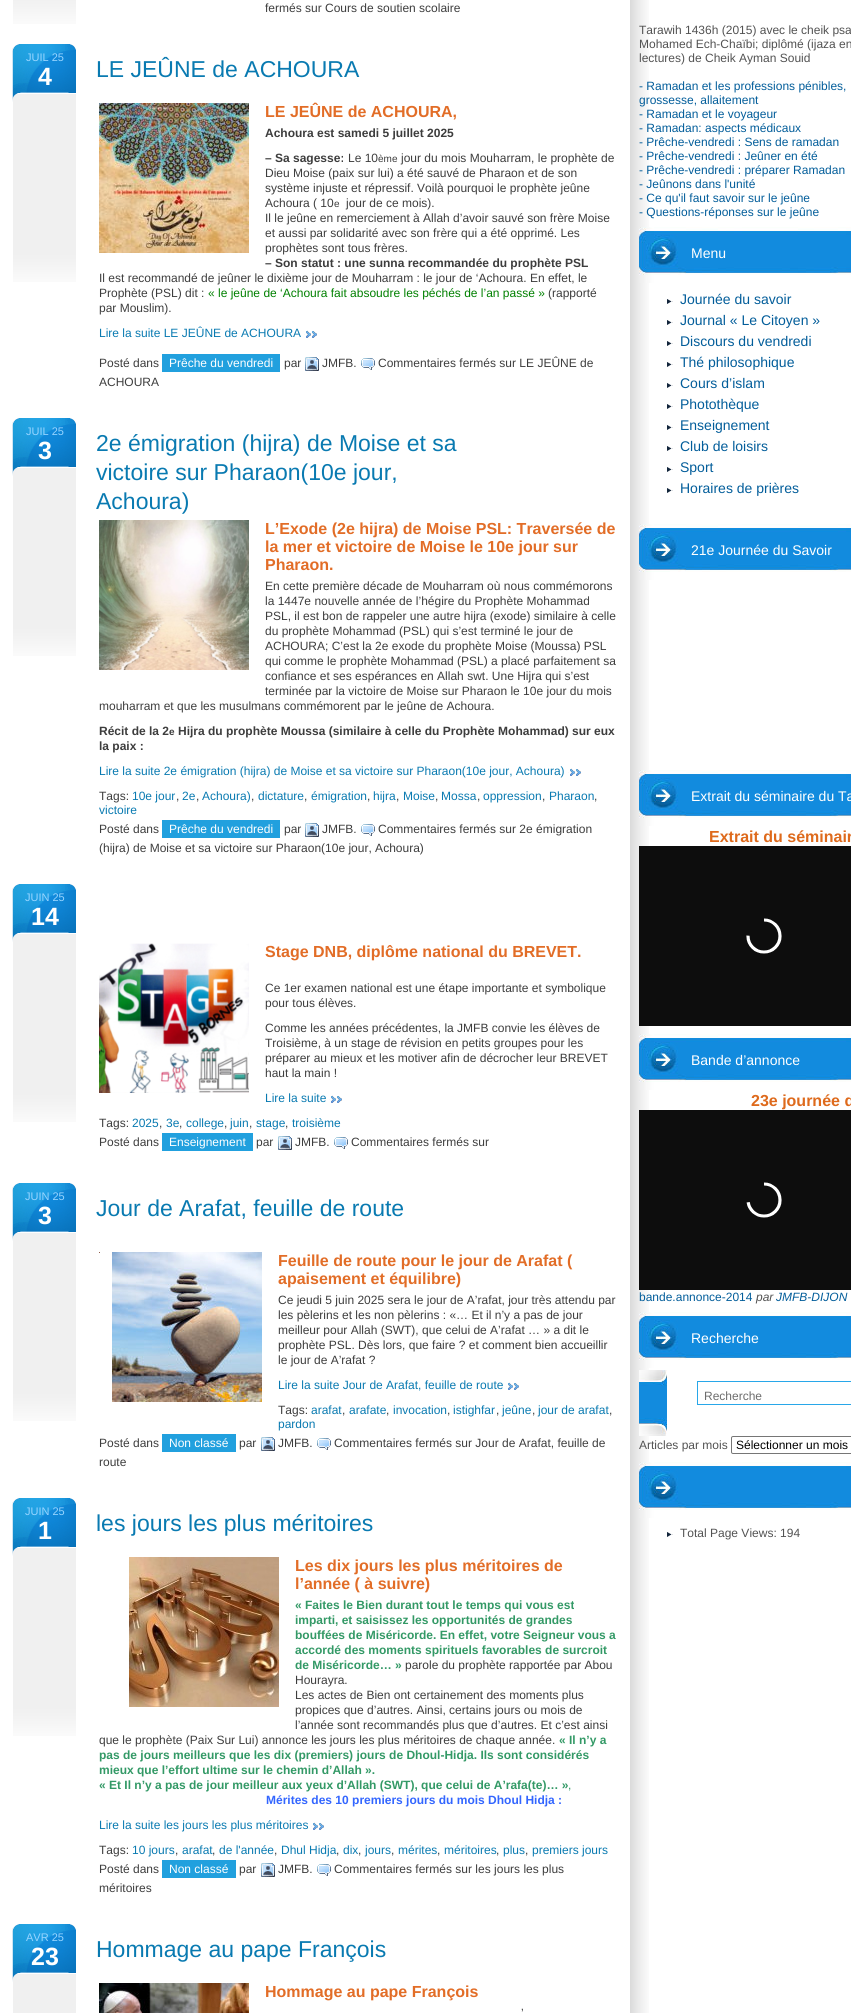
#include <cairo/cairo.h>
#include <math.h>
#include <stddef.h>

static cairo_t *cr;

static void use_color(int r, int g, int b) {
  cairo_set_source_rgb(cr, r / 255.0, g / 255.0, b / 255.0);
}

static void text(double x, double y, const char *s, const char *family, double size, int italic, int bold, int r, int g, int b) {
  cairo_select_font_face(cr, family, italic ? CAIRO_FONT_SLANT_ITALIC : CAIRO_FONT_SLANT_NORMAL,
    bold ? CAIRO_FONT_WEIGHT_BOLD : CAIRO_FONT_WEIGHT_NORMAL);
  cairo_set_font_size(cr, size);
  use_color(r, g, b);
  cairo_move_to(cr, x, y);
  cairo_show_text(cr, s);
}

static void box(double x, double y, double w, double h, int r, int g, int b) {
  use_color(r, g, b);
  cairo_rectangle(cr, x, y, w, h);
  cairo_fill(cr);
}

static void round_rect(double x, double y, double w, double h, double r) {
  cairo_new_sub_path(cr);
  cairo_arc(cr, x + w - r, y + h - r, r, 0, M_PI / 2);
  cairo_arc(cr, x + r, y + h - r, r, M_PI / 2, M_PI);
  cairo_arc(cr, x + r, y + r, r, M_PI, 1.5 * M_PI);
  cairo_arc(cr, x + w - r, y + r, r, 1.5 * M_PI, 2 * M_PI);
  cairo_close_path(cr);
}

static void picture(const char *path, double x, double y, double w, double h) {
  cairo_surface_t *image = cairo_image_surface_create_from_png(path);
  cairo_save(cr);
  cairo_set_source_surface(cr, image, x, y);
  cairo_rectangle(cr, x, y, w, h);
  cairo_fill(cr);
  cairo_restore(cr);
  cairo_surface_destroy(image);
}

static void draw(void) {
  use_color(255, 255, 255);
  cairo_paint(cr);
  picture("img_01.png", 630, 0, 19, 2013);
  picture("img_02.png", 13, 0, 63, 24);
  picture("img_03.png", 12, 44, 64, 238);
  picture("img_04.png", 99, 103, 150, 150);
  picture("img_05.png", 304, 330, 13, 8);
  box(162, 354, 118, 18, 33, 160, 222);
  picture("img_06.png", 305, 357, 14, 14);
  picture("img_07.png", 361, 358, 14, 12);
  picture("img_03.png", 12, 418, 64, 238);
  picture("img_08.png", 99, 520, 150, 150);
  picture("img_05.png", 568, 768, 13, 8);
  box(162, 820, 118, 18, 33, 160, 222);
  picture("img_06.png", 305, 823, 14, 14);
  picture("img_07.png", 361, 824, 14, 12);
  picture("img_03.png", 12, 884, 64, 238);
  picture("img_09.png", 99, 943, 150, 150);
  picture("img_05.png", 329, 1095, 13, 8);
  box(162, 1133, 91, 18, 33, 160, 222);
  picture("img_06.png", 278, 1136, 14, 14);
  picture("img_07.png", 334, 1137, 14, 12);
  picture("img_03.png", 12, 1183, 64, 238);
  box(99, 1252, 1, 1, 144, 93, 73);
  picture("img_10.png", 112, 1252, 150, 150);
  picture("img_05.png", 506, 1382, 13, 8);
  box(162, 1434, 74, 18, 33, 160, 222);
  picture("img_06.png", 261, 1437, 14, 14);
  picture("img_07.png", 317, 1438, 14, 12);
  picture("img_03.png", 12, 1498, 64, 238);
  picture("img_11.png", 129, 1557, 150, 150);
  picture("img_05.png", 311, 1822, 13, 8);
  box(162, 1860, 74, 18, 33, 160, 222);
  picture("img_06.png", 261, 1863, 14, 14);
  picture("img_07.png", 317, 1864, 14, 12);
  picture("img_12.png", 12, 1924, 64, 89);
  picture("img_13.png", 99, 1983, 150, 30);
  picture("img_14.png", 639, 227, 212, 56);
  picture("img_15.png", 667, 299, 6, 5);
  picture("img_15.png", 667, 320, 6, 5);
  picture("img_15.png", 667, 341, 6, 5);
  picture("img_15.png", 667, 362, 6, 5);
  picture("img_15.png", 667, 383, 6, 5);
  picture("img_15.png", 667, 404, 6, 5);
  picture("img_15.png", 667, 425, 6, 5);
  picture("img_15.png", 667, 446, 6, 5);
  picture("img_15.png", 667, 467, 6, 5);
  picture("img_15.png", 667, 488, 6, 5);
  picture("img_14.png", 639, 524, 212, 56);
  picture("img_14.png", 639, 770, 212, 56);
  picture("img_16.png", 639, 846, 212, 180);
  picture("img_14.png", 639, 1034, 212, 56);
  picture("img_17.png", 639, 1110, 212, 180);
  picture("img_14.png", 639, 1312, 212, 56);
  cairo_rectangle(cr, 697.5, 1381.5, 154, 23);
  use_color(40, 167, 233);
  cairo_set_line_width(cr, 1);
  cairo_stroke(cr);
  picture("img_18.png", 639, 1370, 28, 66);
  round_rect(731.5, 1436.5, 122, 17, 1.5);
  use_color(118, 118, 118);
  cairo_stroke(cr);
  picture("img_14.png", 639, 1462, 212, 56);
  picture("img_15.png", 667, 1532, 6, 5);
  text(265, 12, "fermés sur Cours de soutien scolaire", "Liberation Sans", 12, 0, 0, 61, 61, 61);
  text(26, 61, "JUIL 25", "Liberation Sans", 11, 0, 0, 152, 213, 255);
  text(38, 85, "4", "Liberation Sans", 25, 0, 1, 255, 255, 255);
  text(96, 77, "LE JEÛNE de ACHOURA", "Liberation Sans", 23, 0, 0, 9, 122, 177);
  text(265, 117, "LE JEÛNE de ACHOURA,", "Liberation Sans", 16, 0, 1, 226, 109, 39);
  text(265, 137, "Achoura est samedi 5 juillet 2025", "Liberation Sans", 12, 0, 1, 61, 61, 61);
  text(265, 162, "– Sa sagesse:", "Liberation Sans", 12, 0, 1, 61, 61, 61);
  text(348, 162, "Le 10", "Liberation Sans", 12, 0, 0, 61, 61, 61);
  text(378, 162, "ème", "Liberation Sans", 10, 0, 0, 61, 61, 61);
  text(401, 162, "jour du mois Mouharram, le prophète de", "Liberation Sans", 12, 0, 0, 61, 61, 61);
  text(265, 177, "Dieu Moise (paix sur lui) a été sauvé de Pharaon et de son", "Liberation Sans", 12, 0, 0, 61, 61, 61);
  text(265, 192, "système injuste et répressif. Voilà pourquoi le prophète jeûne", "Liberation Sans", 12, 0, 0, 61, 61, 61);
  text(265, 207, "Achoura ( 10", "Liberation Sans", 12, 0, 0, 61, 61, 61);
  text(334, 207, "e", "Liberation Sans", 10, 0, 0, 61, 61, 61);
  text(346, 207, "jour de ce mois).", "Liberation Sans", 12, 0, 0, 61, 61, 61);
  text(265, 222, "Il le jeûne en remerciement à Allah d’avoir sauvé son frère Moise", "Liberation Sans", 12, 0, 0, 61, 61, 61);
  text(265, 237, "et aussi par solidarité avec son frère qui a été opprimé. Les", "Liberation Sans", 12, 0, 0, 61, 61, 61);
  text(265, 252, "prophètes sont tous frères.", "Liberation Sans", 12, 0, 0, 61, 61, 61);
  text(265, 267, "– Son statut : une sunna recommandée du prophète PSL", "Liberation Sans", 12, 0, 1, 61, 61, 61);
  text(99, 282, "Il est recommandé de jeûner le dixième jour de Mouharram : le jour de ‘Achoura. En effet, le", "Liberation Sans", 12, 0, 0, 61, 61, 61);
  text(99, 297, "Prophète (PSL) dit :", "Liberation Sans", 12, 0, 0, 61, 61, 61);
  text(208, 297, "« le jeûne de ‘Achoura fait absoudre les péchés de l’an passé »", "Liberation Sans", 12, 0, 0, 0, 128, 0);
  text(548, 297, "(rapporté", "Liberation Sans", 12, 0, 0, 61, 61, 61);
  text(99, 312, "par Mouslim).", "Liberation Sans", 12, 0, 0, 61, 61, 61);
  text(99, 337, "Lire la suite LE JEÛNE de ACHOURA", "Liberation Sans", 12, 0, 0, 9, 122, 177);
  text(99, 367, "Posté dans", "Liberation Sans", 12, 0, 0, 61, 61, 61);
  text(169, 367, "Prêche du vendredi", "Liberation Sans", 12, 0, 0, 255, 255, 255);
  text(284, 367, "par", "Liberation Sans", 12, 0, 0, 61, 61, 61);
  text(322, 367, "JMFB.", "Liberation Sans", 12, 0, 0, 61, 61, 61);
  text(378, 367, "Commentaires fermés sur LE JEÛNE de", "Liberation Sans", 12, 0, 0, 61, 61, 61);
  text(99, 386, "ACHOURA", "Liberation Sans", 12, 0, 0, 61, 61, 61);
  text(26, 435, "JUIL 25", "Liberation Sans", 11, 0, 0, 152, 213, 255);
  text(38, 459, "3", "Liberation Sans", 25, 0, 1, 255, 255, 255);
  text(96, 451, "2e émigration (hijra) de Moise et sa", "Liberation Sans", 23, 0, 0, 9, 122, 177);
  text(96, 480, "victoire sur Pharaon(10e jour,", "Liberation Sans", 23, 0, 0, 9, 122, 177);
  text(96, 509, "Achoura)", "Liberation Sans", 23, 0, 0, 9, 122, 177);
  text(265, 534, "L’Exode (2e hijra) de Moise PSL: Traversée de", "Liberation Sans", 16, 0, 1, 226, 109, 39);
  text(265, 552, "la mer et victoire de Moise le 10e jour sur", "Liberation Sans", 16, 0, 1, 226, 109, 39);
  text(265, 570, "Pharaon.", "Liberation Sans", 16, 0, 1, 226, 109, 39);
  text(265, 590, "En cette première décade de Mouharram où nous commémorons", "Liberation Sans", 12, 0, 0, 61, 61, 61);
  text(265, 605, "la 1447e nouvelle année de l’hégire du Prophète Mohammad", "Liberation Sans", 12, 0, 0, 61, 61, 61);
  text(265, 620, "PSL, il est bon de rappeler une autre hijra (exode) similaire à celle", "Liberation Sans", 12, 0, 0, 61, 61, 61);
  text(265, 635, "du prophète Mohammad (PSL) qui s’est terminé le jour de", "Liberation Sans", 12, 0, 0, 61, 61, 61);
  text(265, 650, "ACHOURA; C’est la 2e exode du prophète Moise (Moussa) PSL", "Liberation Sans", 12, 0, 0, 61, 61, 61);
  text(265, 665, "qui comme le prophète Mohammad (PSL) a placé parfaitement sa", "Liberation Sans", 12, 0, 0, 61, 61, 61);
  text(265, 680, "confiance et ses espérances en Allah swt. Une Hijra qui s’est", "Liberation Sans", 12, 0, 0, 61, 61, 61);
  text(265, 695, "terminée par la victoire de Moise sur Pharaon le 10e jour du mois", "Liberation Sans", 12, 0, 0, 61, 61, 61);
  text(99, 710, "mouharram et que les musulmans commémorent par le jeûne de Achoura.", "Liberation Sans", 12, 0, 0, 61, 61, 61);
  text(99, 735, "Récit de la 2", "Liberation Sans", 12, 0, 1, 61, 61, 61);
  text(169, 735, "e", "Liberation Sans", 10, 0, 1, 61, 61, 61);
  text(178, 735, "Hijra du prophète Moussa (similaire à celle du Prophète Mohammad) sur eux", "Liberation Sans", 12, 0, 1, 61, 61, 61);
  text(99, 750, "la paix :", "Liberation Sans", 12, 0, 1, 61, 61, 61);
  text(99, 775, "Lire la suite 2e émigration (hijra) de Moise et sa victoire sur Pharaon(10e jour, Achoura)", "Liberation Sans", 12, 0, 0, 9, 122, 177);
  text(99, 800, "Tags:", "Liberation Sans", 12, 0, 0, 61, 61, 61);
  text(132, 800, "10e jour", "Liberation Sans", 12, 0, 0, 9, 122, 177);
  text(176, 800, ",", "Liberation Sans", 12, 0, 0, 61, 61, 61);
  text(182, 800, "2e", "Liberation Sans", 12, 0, 0, 9, 122, 177);
  text(196, 800, ",", "Liberation Sans", 12, 0, 0, 61, 61, 61);
  text(202, 800, "Achoura)", "Liberation Sans", 12, 0, 0, 9, 122, 177);
  text(251, 800, ",", "Liberation Sans", 12, 0, 0, 61, 61, 61);
  text(258, 800, "dictature", "Liberation Sans", 12, 0, 0, 9, 122, 177);
  text(304, 800, ",", "Liberation Sans", 12, 0, 0, 61, 61, 61);
  text(311, 800, "émigration", "Liberation Sans", 12, 0, 0, 9, 122, 177);
  text(367, 800, ",", "Liberation Sans", 12, 0, 0, 61, 61, 61);
  text(373, 800, "hijra", "Liberation Sans", 12, 0, 0, 9, 122, 177);
  text(396, 800, ",", "Liberation Sans", 12, 0, 0, 61, 61, 61);
  text(403, 800, "Moise", "Liberation Sans", 12, 0, 0, 9, 122, 177);
  text(435, 800, ",", "Liberation Sans", 12, 0, 0, 61, 61, 61);
  text(441, 800, "Mossa", "Liberation Sans", 12, 0, 0, 9, 122, 177);
  text(477, 800, ",", "Liberation Sans", 12, 0, 0, 61, 61, 61);
  text(483, 800, "oppression", "Liberation Sans", 12, 0, 0, 9, 122, 177);
  text(542, 800, ",", "Liberation Sans", 12, 0, 0, 61, 61, 61);
  text(549, 800, "Pharaon", "Liberation Sans", 12, 0, 0, 9, 122, 177);
  text(594, 800, ",", "Liberation Sans", 12, 0, 0, 61, 61, 61);
  text(99, 814, "victoire", "Liberation Sans", 12, 0, 0, 9, 122, 177);
  text(99, 833, "Posté dans", "Liberation Sans", 12, 0, 0, 61, 61, 61);
  text(169, 833, "Prêche du vendredi", "Liberation Sans", 12, 0, 0, 255, 255, 255);
  text(284, 833, "par", "Liberation Sans", 12, 0, 0, 61, 61, 61);
  text(322, 833, "JMFB.", "Liberation Sans", 12, 0, 0, 61, 61, 61);
  text(378, 833, "Commentaires fermés sur 2e émigration", "Liberation Sans", 12, 0, 0, 61, 61, 61);
  text(99, 852, "(hijra) de Moise et sa victoire sur Pharaon(10e jour, Achoura)", "Liberation Sans", 12, 0, 0, 61, 61, 61);
  text(25, 901, "JUIN 25", "Liberation Sans", 11, 0, 0, 152, 213, 255);
  text(31, 925, "14", "Liberation Sans", 25, 0, 1, 255, 255, 255);
  text(265, 957, "Stage DNB, diplôme national du BREVET.", "Liberation Sans", 16, 0, 1, 226, 109, 39);
  text(265, 992, "Ce 1er examen national est une étape importante et symbolique", "Liberation Sans", 12, 0, 0, 61, 61, 61);
  text(265, 1007, "pour tous élèves.", "Liberation Sans", 12, 0, 0, 61, 61, 61);
  text(265, 1032, "Comme les années précédentes, la JMFB convie les élèves de", "Liberation Sans", 12, 0, 0, 61, 61, 61);
  text(265, 1047, "Troisième, à un stage de révision en petits groupes pour les", "Liberation Sans", 12, 0, 0, 61, 61, 61);
  text(265, 1062, "préparer au mieux et les motiver afin de décrocher leur BREVET", "Liberation Sans", 12, 0, 0, 61, 61, 61);
  text(265, 1077, "haut la main !", "Liberation Sans", 12, 0, 0, 61, 61, 61);
  text(265, 1102, "Lire la suite", "Liberation Sans", 12, 0, 0, 9, 122, 177);
  text(99, 1127, "Tags:", "Liberation Sans", 12, 0, 0, 61, 61, 61);
  text(132, 1127, "2025", "Liberation Sans", 12, 0, 0, 9, 122, 177);
  text(159, 1127, ",", "Liberation Sans", 12, 0, 0, 61, 61, 61);
  text(166, 1127, "3e", "Liberation Sans", 12, 0, 0, 9, 122, 177);
  text(179, 1127, ",", "Liberation Sans", 12, 0, 0, 61, 61, 61);
  text(186, 1127, "college", "Liberation Sans", 12, 0, 0, 9, 122, 177);
  text(224, 1127, ",", "Liberation Sans", 12, 0, 0, 61, 61, 61);
  text(230, 1127, "juin", "Liberation Sans", 12, 0, 0, 9, 122, 177);
  text(249, 1127, ",", "Liberation Sans", 12, 0, 0, 61, 61, 61);
  text(256, 1127, "stage", "Liberation Sans", 12, 0, 0, 9, 122, 177);
  text(285, 1127, ",", "Liberation Sans", 12, 0, 0, 61, 61, 61);
  text(292, 1127, "troisième", "Liberation Sans", 12, 0, 0, 9, 122, 177);
  text(99, 1146, "Posté dans", "Liberation Sans", 12, 0, 0, 61, 61, 61);
  text(169, 1146, "Enseignement", "Liberation Sans", 12, 0, 0, 255, 255, 255);
  text(256, 1146, "par", "Liberation Sans", 12, 0, 0, 61, 61, 61);
  text(295, 1146, "JMFB.", "Liberation Sans", 12, 0, 0, 61, 61, 61);
  text(351, 1146, "Commentaires fermés sur", "Liberation Sans", 12, 0, 0, 61, 61, 61);
  text(25, 1200, "JUIN 25", "Liberation Sans", 11, 0, 0, 152, 213, 255);
  text(38, 1224, "3", "Liberation Sans", 25, 0, 1, 255, 255, 255);
  text(96, 1216, "Jour de Arafat, feuille de route", "Liberation Sans", 23, 0, 0, 9, 122, 177);
  text(278, 1266, "Feuille de route pour le jour de Arafat (", "Liberation Sans", 16, 0, 1, 226, 109, 39);
  text(278, 1284, "apaisement et équilibre)", "Liberation Sans", 16, 0, 1, 226, 109, 39);
  text(278, 1304, "Ce jeudi 5 juin 2025 sera le jour de A’rafat, jour très attendu par", "Liberation Sans", 12, 0, 0, 61, 61, 61);
  text(278, 1319, "les pèlerins et les non pèlerins : «… Et il n’y a pas de jour", "Liberation Sans", 12, 0, 0, 61, 61, 61);
  text(278, 1334, "meilleur pour Allah (SWT), que celui de A’rafat … » a dit le", "Liberation Sans", 12, 0, 0, 61, 61, 61);
  text(278, 1349, "prophète PSL. Dès lors, que faire ? et comment bien accueillir", "Liberation Sans", 12, 0, 0, 61, 61, 61);
  text(278, 1364, "le jour de A’rafat ?", "Liberation Sans", 12, 0, 0, 61, 61, 61);
  text(278, 1389, "Lire la suite Jour de Arafat, feuille de route", "Liberation Sans", 12, 0, 0, 9, 122, 177);
  text(278, 1414, "Tags:", "Liberation Sans", 12, 0, 0, 61, 61, 61);
  text(311, 1414, "arafat", "Liberation Sans", 12, 0, 0, 9, 122, 177);
  text(342, 1414, ",", "Liberation Sans", 12, 0, 0, 61, 61, 61);
  text(349, 1414, "arafate", "Liberation Sans", 12, 0, 0, 9, 122, 177);
  text(386, 1414, ",", "Liberation Sans", 12, 0, 0, 61, 61, 61);
  text(393, 1414, "invocation", "Liberation Sans", 12, 0, 0, 9, 122, 177);
  text(447, 1414, ",", "Liberation Sans", 12, 0, 0, 61, 61, 61);
  text(453, 1414, "istighfar", "Liberation Sans", 12, 0, 0, 9, 122, 177);
  text(496, 1414, ",", "Liberation Sans", 12, 0, 0, 61, 61, 61);
  text(502, 1414, "jeûne", "Liberation Sans", 12, 0, 0, 9, 122, 177);
  text(532, 1414, ",", "Liberation Sans", 12, 0, 0, 61, 61, 61);
  text(538, 1414, "jour de arafat", "Liberation Sans", 12, 0, 0, 9, 122, 177);
  text(609, 1414, ",", "Liberation Sans", 12, 0, 0, 61, 61, 61);
  text(278, 1428, "pardon", "Liberation Sans", 12, 0, 0, 9, 122, 177);
  text(99, 1447, "Posté dans", "Liberation Sans", 12, 0, 0, 61, 61, 61);
  text(169, 1447, "Non classé", "Liberation Sans", 12, 0, 0, 255, 255, 255);
  text(239, 1447, "par", "Liberation Sans", 12, 0, 0, 61, 61, 61);
  text(278, 1447, "JMFB.", "Liberation Sans", 12, 0, 0, 61, 61, 61);
  text(334, 1447, "Commentaires fermés sur Jour de Arafat, feuille de", "Liberation Sans", 12, 0, 0, 61, 61, 61);
  text(99, 1466, "route", "Liberation Sans", 12, 0, 0, 61, 61, 61);
  text(25, 1515, "JUIN 25", "Liberation Sans", 11, 0, 0, 152, 213, 255);
  text(38, 1539, "1", "Liberation Sans", 25, 0, 1, 255, 255, 255);
  text(96, 1531, "les jours les plus méritoires", "Liberation Sans", 23, 0, 0, 9, 122, 177);
  text(295, 1571, "Les dix jours les plus méritoires de", "Liberation Sans", 16, 0, 1, 226, 109, 39);
  text(295, 1589, "l’année ( à suivre)", "Liberation Sans", 16, 0, 1, 226, 109, 39);
  text(295, 1609, "« Faites le Bien durant tout le temps qui vous est", "Liberation Sans", 12, 0, 1, 51, 153, 102);
  text(295, 1624, "imparti, et saisissez les opportunités de grandes", "Liberation Sans", 12, 0, 1, 51, 153, 102);
  text(295, 1639, "bouffées de Miséricorde. En effet, votre Seigneur vous a", "Liberation Sans", 12, 0, 1, 51, 153, 102);
  text(295, 1654, "accordé des moments spirituels favorables de surcroit", "Liberation Sans", 12, 0, 1, 51, 153, 102);
  text(295, 1669, "de Miséricorde… »", "Liberation Sans", 12, 0, 1, 51, 153, 102);
  text(405, 1669, "parole du prophète rapportée par Abou", "Liberation Sans", 12, 0, 0, 61, 61, 61);
  text(295, 1684, "Hourayra.", "Liberation Sans", 12, 0, 0, 61, 61, 61);
  text(295, 1699, "Les actes de Bien ont certainement des moments plus", "Liberation Sans", 12, 0, 0, 61, 61, 61);
  text(295, 1714, "propices que d’autres. Ainsi, certains jours ou mois de", "Liberation Sans", 12, 0, 0, 61, 61, 61);
  text(295, 1729, "l’année sont recommandés plus que d’autres. Et c’est ainsi", "Liberation Sans", 12, 0, 0, 61, 61, 61);
  text(99, 1744, "que le prophète (Paix Sur Lui) annonce les jours les plus méritoires de chaque année.", "Liberation Sans", 12, 0, 0, 61, 61, 61);
  text(559, 1744, "« Il n’y a", "Liberation Sans", 12, 0, 1, 51, 153, 102);
  text(99, 1759, "pas de jours meilleurs que les dix (premiers) jours de Dhoul-Hidja. Ils sont considérés", "Liberation Sans", 12, 0, 1, 51, 153, 102);
  text(99, 1774, "mieux que l’effort ultime sur le chemin d’Allah ».", "Liberation Sans", 12, 0, 1, 51, 153, 102);
  text(99, 1789, "« Et Il n’y a pas de jour meilleur aux yeux d’Allah (SWT), que celui de A’rafa(te)… »", "Liberation Sans", 12, 0, 1, 51, 153, 102);
  text(568, 1789, ",", "Liberation Sans", 12, 0, 0, 51, 153, 102);
  text(266, 1804, "Mérites des 10 premiers jours du mois Dhoul Hidja :", "Liberation Sans", 12, 0, 1, 51, 102, 255);
  text(99, 1829, "Lire la suite les jours les plus méritoires", "Liberation Sans", 12, 0, 0, 9, 122, 177);
  text(99, 1854, "Tags:", "Liberation Sans", 12, 0, 0, 61, 61, 61);
  text(132, 1854, "10 jours", "Liberation Sans", 12, 0, 0, 9, 122, 177);
  text(175, 1854, ",", "Liberation Sans", 12, 0, 0, 61, 61, 61);
  text(182, 1854, "arafat", "Liberation Sans", 12, 0, 0, 9, 122, 177);
  text(212, 1854, ",", "Liberation Sans", 12, 0, 0, 61, 61, 61);
  text(219, 1854, "de l'année", "Liberation Sans", 12, 0, 0, 9, 122, 177);
  text(274, 1854, ",", "Liberation Sans", 12, 0, 0, 61, 61, 61);
  text(281, 1854, "Dhul Hidja", "Liberation Sans", 12, 0, 0, 9, 122, 177);
  text(336, 1854, ",", "Liberation Sans", 12, 0, 0, 61, 61, 61);
  text(343, 1854, "dix", "Liberation Sans", 12, 0, 0, 9, 122, 177);
  text(358, 1854, ",", "Liberation Sans", 12, 0, 0, 61, 61, 61);
  text(365, 1854, "jours", "Liberation Sans", 12, 0, 0, 9, 122, 177);
  text(391, 1854, ",", "Liberation Sans", 12, 0, 0, 61, 61, 61);
  text(398, 1854, "mérites", "Liberation Sans", 12, 0, 0, 9, 122, 177);
  text(437, 1854, ",", "Liberation Sans", 12, 0, 0, 61, 61, 61);
  text(444, 1854, "méritoires", "Liberation Sans", 12, 0, 0, 9, 122, 177);
  text(496, 1854, ",", "Liberation Sans", 12, 0, 0, 61, 61, 61);
  text(503, 1854, "plus", "Liberation Sans", 12, 0, 0, 9, 122, 177);
  text(525, 1854, ",", "Liberation Sans", 12, 0, 0, 61, 61, 61);
  text(532, 1854, "premiers jours", "Liberation Sans", 12, 0, 0, 9, 122, 177);
  text(99, 1873, "Posté dans", "Liberation Sans", 12, 0, 0, 61, 61, 61);
  text(169, 1873, "Non classé", "Liberation Sans", 12, 0, 0, 255, 255, 255);
  text(239, 1873, "par", "Liberation Sans", 12, 0, 0, 61, 61, 61);
  text(278, 1873, "JMFB.", "Liberation Sans", 12, 0, 0, 61, 61, 61);
  text(334, 1873, "Commentaires fermés sur les jours les plus", "Liberation Sans", 12, 0, 0, 61, 61, 61);
  text(99, 1892, "méritoires", "Liberation Sans", 12, 0, 0, 61, 61, 61);
  text(26, 1941, "AVR 25", "Liberation Sans", 11, 0, 0, 152, 213, 255);
  text(31, 1965, "23", "Liberation Sans", 25, 0, 1, 255, 255, 255);
  text(96, 1957, "Hommage au pape François", "Liberation Sans", 23, 0, 0, 9, 122, 177);
  text(265, 1997, "Hommage au pape François", "Liberation Sans", 16, 0, 1, 226, 109, 39);
  text(521, 2017, "’", "Liberation Sans", 12, 0, 0, 61, 61, 61);
  text(639, 34, "Tarawih 1436h (2015) avec le cheik psa", "Liberation Sans", 12, 0, 0, 82, 82, 82);
  text(639, 48, "Mohamed Ech-Chaïbi; diplômé (ijaza en", "Liberation Sans", 12, 0, 0, 82, 82, 82);
  text(639, 62, "lectures) de Cheik Ayman Souid", "Liberation Sans", 12, 0, 0, 82, 82, 82);
  text(639, 90, "- Ramadan et les professions pénibles,", "Liberation Sans", 12, 0, 0, 2, 93, 154);
  text(639, 104, "grossesse, allaitement", "Liberation Sans", 12, 0, 0, 2, 93, 154);
  text(639, 118, "- Ramadan et le voyageur", "Liberation Sans", 12, 0, 0, 2, 93, 154);
  text(639, 132, "- Ramadan: aspects médicaux", "Liberation Sans", 12, 0, 0, 2, 93, 154);
  text(639, 146, "- Prêche-vendredi : Sens de ramadan", "Liberation Sans", 12, 0, 0, 2, 93, 154);
  text(639, 160, "- Prêche-vendredi : Jeûner en été", "Liberation Sans", 12, 0, 0, 2, 93, 154);
  text(639, 174, "- Prêche-vendredi : préparer Ramadan", "Liberation Sans", 12, 0, 0, 2, 93, 154);
  text(639, 188, "- Jeûnons dans l'unité", "Liberation Sans", 12, 0, 0, 2, 93, 154);
  text(639, 202, "- Ce qu'il faut savoir sur le jeûne", "Liberation Sans", 12, 0, 0, 2, 93, 154);
  text(639, 216, "- Questions-réponses sur le jeûne", "Liberation Sans", 12, 0, 0, 2, 93, 154);
  text(691, 258, "Menu", "Liberation Sans", 14, 0, 0, 255, 255, 255);
  text(680, 304, "Journée du savoir", "Liberation Sans", 14, 0, 0, 2, 93, 154);
  text(680, 325, "Journal « Le Citoyen »", "Liberation Sans", 14, 0, 0, 2, 93, 154);
  text(680, 346, "Discours du vendredi", "Liberation Sans", 14, 0, 0, 2, 93, 154);
  text(680, 367, "Thé philosophique", "Liberation Sans", 14, 0, 0, 2, 93, 154);
  text(680, 388, "Cours d’islam", "Liberation Sans", 14, 0, 0, 2, 93, 154);
  text(680, 409, "Photothèque", "Liberation Sans", 14, 0, 0, 2, 93, 154);
  text(680, 430, "Enseignement", "Liberation Sans", 14, 0, 0, 2, 93, 154);
  text(680, 451, "Club de loisirs", "Liberation Sans", 14, 0, 0, 2, 93, 154);
  text(680, 472, "Sport", "Liberation Sans", 14, 0, 0, 2, 93, 154);
  text(680, 493, "Horaires de prières", "Liberation Sans", 14, 0, 0, 2, 93, 154);
  text(691, 555, "21e Journée du Savoir", "Liberation Sans", 14, 0, 0, 255, 255, 255);
  text(691, 801, "Extrait du séminaire du Ta", "Liberation Sans", 14, 0, 0, 255, 255, 255);
  text(709, 842, "Extrait du séminair", "Liberation Sans", 16, 0, 1, 222, 106, 28);
  text(691, 1065, "Bande d’annonce", "Liberation Sans", 14, 0, 0, 255, 255, 255);
  text(751, 1106, "23e journée d", "Liberation Sans", 16, 0, 1, 222, 106, 28);
  text(639, 1301, "bande.annonce-2014", "Liberation Sans", 12, 0, 0, 2, 93, 154);
  text(756, 1301, "par", "Liberation Sans", 12, 1, 0, 82, 82, 82);
  text(776, 1301, "JMFB-DIJON", "Liberation Sans", 12, 1, 0, 2, 93, 154);
  text(691, 1343, "Recherche", "Liberation Sans", 14, 0, 0, 255, 255, 255);
  text(704, 1400, "Recherche", "Liberation Sans", 12, 0, 0, 109, 109, 109);
  text(639, 1449, "Articles par mois", "Liberation Sans", 12, 0, 0, 82, 82, 82);
  text(736, 1449, "Sélectionner un mois", "Liberation Sans", 12, 0, 0, 0, 0, 0);
  text(680, 1537, "Total Page Views: 194", "Liberation Sans", 12, 0, 0, 82, 82, 82);
}

int main(void) {
  cairo_surface_t *surface = cairo_image_surface_create(CAIRO_FORMAT_RGB24, 851, 2013);
  cr = cairo_create(surface);
  cairo_font_options_t *options = cairo_font_options_create();
  cairo_font_options_set_hint_metrics(options, CAIRO_HINT_METRICS_OFF);
  cairo_font_options_set_hint_style(options, CAIRO_HINT_STYLE_NONE);
  cairo_set_font_options(cr, options);
  cairo_set_miter_limit(cr, 4);
  draw();
  cairo_surface_write_to_png(surface, "out.png");
  cairo_font_options_destroy(options);
  cairo_destroy(cr);
  cairo_surface_destroy(surface);
  return 0;
}
